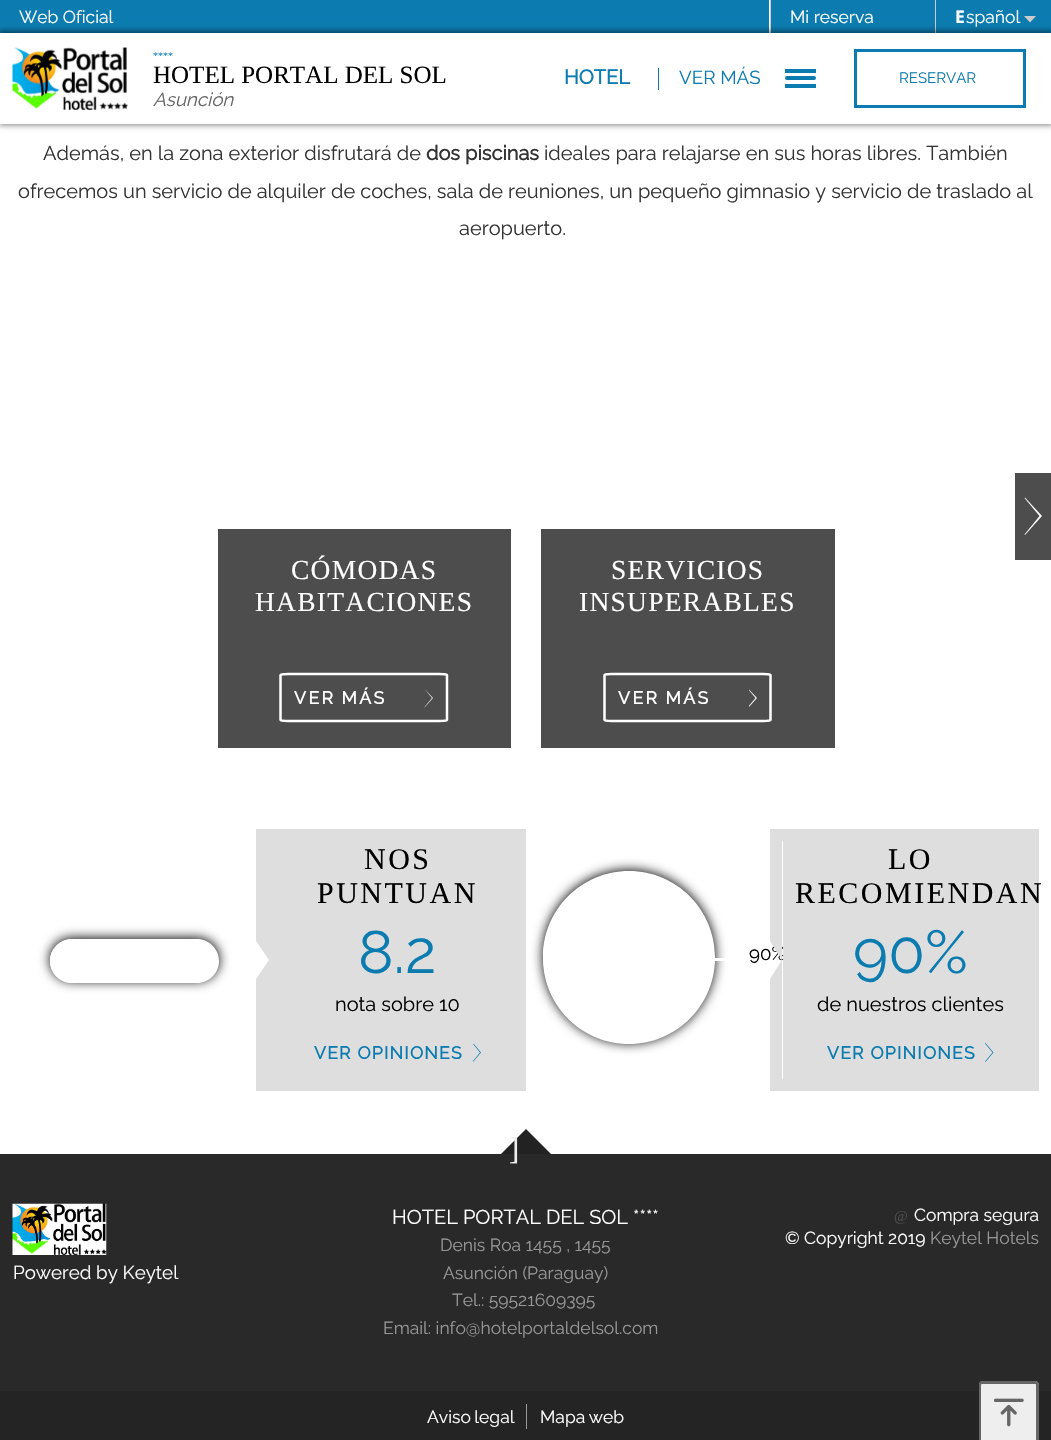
void draw(SkCanvas* c) {
SkPaint p;
p.setAntiAlias(true);
auto F=[&](const char* family, int weight, float size, bool italic = false){SkFontStyle style(weight, SkFontStyle::kNormal_Width,italic ? SkFontStyle::kItalic_Slant : SkFontStyle::kUpright_Slant);SkFont result(fontMgr->matchFamilyStyle(family, style), size);result.setSubpixel(true);return result;};
auto T=[&](const char* s, float x, float y, const SkFont& font){c->drawString(s, x, y, font, p);};
auto L=[&](const char* s, float x, float y, const SkFont& font, const SkPaint& ink, float letter, float word){std::vector<SkGlyphID> glyphs(font.countText(s, strlen(s), SkTextEncoding::kUTF8));std::vector<float> xs(glyphs.size());font.textToGlyphs(s, strlen(s), SkTextEncoding::kUTF8, glyphs);font.getXPos(glyphs, xs, x);float extra = 0;for (size_t i = 0; i < glyphs.size(); i++) {xs[i] += extra;extra += letter + word * (glyphs[i] == font.unicharToGlyph(' '));}c->drawTextBlob(SkTextBlob::MakeFromPosHGlyphs(glyphs, xs, y, font), 0, 0, ink);};
auto R=[&](float x, float y, float w, float h){c->drawRect(SkRect::MakeXYWH(x, y, w, h), p);};
auto Q=[&](float x, float y, float w, float h, float radius){c->drawRoundRect(SkRect::MakeXYWH(x, y, w, h), radius, radius, p);};
auto I=[&](const char* path, float x, float y, float w, float h){auto image = SkImages::DeferredFromEncodedData(SkData::MakeFromFileName(path));c->drawImageRect(image, SkRect::MakeXYWH(x, y, w, h), SkSamplingOptions());};
auto P=[&](const char* data, bool evenOdd = false){SkPath result = *SkParsePath::FromSVGString(data);if (evenOdd) result.setFillType(SkPathFillType::kEvenOdd);return result;};
c->clear(0xffffffff);
p.setColor(0xff0c7cb0);
R(0,0,1051,33);
auto f1 = F("Raleway",100,17.5);
p.setColor(0xffffffff);
T("Web Oficial",19,23,f1);
R(769,0,1,33);
p.setColor(0xffcccccc);
R(770,0,1,33);
p.setColor(0xffffffff);
T("Mi reserva",790,23,f1);
p.setColor(0xffcccccc);
R(935,0,1,33);
auto f2 = F("Noto Sans",700,17.5);
p.setColor(0xffffffff);
T("E",955,23,f2);
T("spañol",966,23,f1);
p.setColor(0xffcccccc);
c->drawPath(P("M1024 16h12l-6 6.5z"),p);
p.setColor(0x80000000);
p.setMaskFilter(SkMaskFilter::MakeBlur(kNormal_SkBlurStyle, 3));
c->drawRect(SkRect::MakeXYWH(-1,31,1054,94),p);
p.setMaskFilter(nullptr);
p.setColor(0xffffffff);
R(0,33,1051,91);
I("1.png",12,47,116,63);
auto f3 = F("Liberation Serif",400,10);
p.setColor(0xff0c7cb0);
T("****",153,59,f3);
auto f4 = F("Liberation Serif",400,25);
p.setColor(0xff000000);
T("HOTEL PORTAL DEL SOL",153,83,f4);
auto f5 = F("Raleway",100,18.75,true);
p.setColor(0xff666666);
T("Asunción",153,106,f5);
auto f6 = F("Raleway",700,20);
p.setColor(0xff0c7cb0);
T("HOTEL",564,84,f6);
R(658,68,1,22);
auto f7 = F("Raleway",100,18.75);
T("VER MÁS",679,84,f7);
Q(785,76,31,4,2);
R(785,69,31,4);
R(785,84,31,4);
p.setStroke(true);
p.setStrokeWidth(3);
c->drawRect(SkRect::MakeXYWH(855.5,50.5,169,56),p);
auto f8 = F("Raleway",100,15);
p.setStroke(false);
T("RESERVAR",899,83,f8);
auto f9 = F("Raleway",100,20);
p.setColor(0xff333333);
T("Además, en la zona exterior disfrutará de",43,160,f9);
T("dos piscinas",426,160,f6);
T("ideales para relajarse en sus horas libres. También",544,160,f9);
T("ofrecemos un servicio de alquiler de coches, sala de reuniones, un pequeño gimnasio y servicio de traslado al",18,198,f9);
T("aeropuerto.",459,235,f9);
p.setColor(0xff4d4d4d);
R(1015,473,36,87);
p.setColor(0xffffffff);
c->drawPath(P("M1042 516l-17 19l-.5-.5l15-18.5l-15-18l.5-.5z"),p);
p.setColor(0xff4d4d4d);
R(218,529,293,219);
auto f10 = F("Liberation Serif",400,27.5);
p.setColor(0xffffffff);
L("CÓMODAS",291,579,f10,p,1.25,0);
L("HABITACIONES",255,611,f10,p,1.25,0);
p.setStroke(true);
p.setStrokeWidth(2.5);
c->drawPath(P("M288 674h151.5c4 0 7.5 .5 7.5 1v45c0 .5-3.5 1-7.5 1h-151.5c-4 0-7.5-.5-7.5-1v-45c0-.5 3.5-1 7.5-1z"),p);
auto f11 = F("Raleway",700,17.5);
p.setStroke(false);
L("VER MÁS",294,704,f11,p,2.5,-1);
c->drawPath(P("M433 698l-8.5 9.5v-.5l7.5-9l-7.5-9z"),p);
p.setColor(0xff4d4d4d);
R(541,529,294,219);
p.setColor(0xffffffff);
L("SERVICIOS",611,579,f10,p,1.25,0);
L("INSUPERABLES",579,611,f10,p,1.25,0);
p.setStroke(true);
c->drawPath(P("M611.5 674h152c4 0 7 .5 7 1v45c0 .5-3 1-7 1h-152c-4 0-7-.5-7-1v-45c0-.5 3-1 7-1z"),p);
p.setStroke(false);
L("VER MÁS",618,704,f11,p,2.5,-1);
c->save();
c->clipRect(SkRect::MakeXYWH(749,689,9,19));
c->drawPath(P("M757 698l-8.5 9.5l-.5-.5l7.5-9l-7.5-9h.5z"),p);
c->restore();
c->save();
c->clipPath(P("M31 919h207v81h-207zm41 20h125c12 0 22 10 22 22c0 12-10 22-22 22h-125c-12 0-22-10-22-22c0-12 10-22 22-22z",true),true);
p.setColor(0xff000000);
p.setMaskFilter(SkMaskFilter::MakeBlur(kNormal_SkBlurStyle, 6));
c->drawRoundRect(SkRect::MakeXYWH(50,938,169,43),21.5,21.5,p);
p.setMaskFilter(nullptr);
c->restore();
p.setColor(0xffffffff);
Q(50,939,139,44,22);
p.setColor(0xffdedede);
R(269,829,257,262);
R(256,829,13,12);
c->drawPath(P("M269 829v131l-13-19v-100z"),p);
auto f12 = F("Liberation Serif",400,30);
p.setColor(0xff000000);
L("NOS",364,869,f12,p,2.5,0);
L("PUNTUAN",317,903,f12,p,2.5,0);
p.setColor(0xffdedede);
c->drawPath(P("M269 960v131l-13-12v-100z"),p);
R(256,1079,13,12);
auto f13 = F("Raleway",100,60);
p.setColor(0xff0c7cb0);
T("8.2",358,973,f13);
p.setColor(0xff000000);
T("nota sobre 10",335,1011,f9);
p.setColor(0xff0c7cb0);
L("VER OPINIONES",314,1059,f11,p,1.25,0);
c->save();
c->clipRect(SkRect::MakeXYWH(473,1044,8,19));
c->drawPath(P("M481 1052.5l-8 9.5l-.5-.5l7.5-9l-7.5-9l.5-.5z"),p);
c->restore();
c->save();
c->clipPath(P("M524 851h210v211h-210zm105 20c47.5 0 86 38.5 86 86v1c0 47.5-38.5 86-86 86c-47.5 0-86-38.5-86-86v-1c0-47.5 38.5-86 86-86z",true),true);
p.setColor(0xff000000);
p.setMaskFilter(SkMaskFilter::MakeBlur(kNormal_SkBlurStyle, 6));
c->drawRoundRect(SkRect::MakeXYWH(543,870,172,173),86,86,p);
p.setMaskFilter(nullptr);
c->restore();
c->save();
c->clipPath(P("M629 871c47.5 0 86 38.5 86 86v1c0 47.5-38.5 86-86 86c-47.5 0-86-38.5-86-86v-1c0-47.5 38.5-86 86-86z"),true);
p.setStroke(true);
p.setStrokeWidth(43.8);
p.setColor(0xffffffff);
c->drawPath(P("M629 894c35 0 63.5 28.5 63.5 63.5c0 35-28.5 63.5-63.5 63.5c-35.5 0-64-28.5-64-63.5c0-21.5 10.5-40.5 27-52"),p);
c->restore();
p.setStroke(false);
R(714,958,15,3);
p.setColor(0xff000000);
T("90%",749,960,f7);
p.setColor(0xffdedede);
R(783,829,256,262);
R(770,829,13,12);
c->drawPath(P("M782 829v131l-12-19v-100z"),p);
p.setColor(0xff000000);
L("LO",888,869,f12,p,2.5,0);
L("RECOMIENDAN",795,903,f12,p,2.5,0);
p.setColor(0xffdedede);
c->drawPath(P("M782 960v131l-12-12v-100z"),p);
R(770,1079,13,12);
p.setColor(0xff0c7cb0);
T("90%",853,973,f13);
p.setColor(0xff000000);
T("de nuestros clientes",817,1011,f9);
p.setColor(0xff0c7cb0);
L("VER OPINIONES",827,1059,f11,p,1.25,0);
c->drawPath(P("M993.5 1052.5l-8 9.5l-.5-.5l7.5-9l-7.5-9l.5-.5z"),p);
p.setColor(0xff222222);
c->drawPath(P("M551 1154h-50l25-25z"),p);
p.setColor(0xff292929);
R(0,1154,1051,237);
auto f14 = F("Liberation Serif",400,31);
p.setColor(0xffeeeeee);
T("]",509,1159,f14);
I("2.png",12,1203,95,52);
p.setColor(0xffffffff);
T("Powered by Keytel",13,1279,f7);
T("HOTEL PORTAL DEL SOL ****",392,1224,f9);
p.setColor(0xff979797);
T("Denis Roa 1455 , 1455",440,1251,f1);
T("Asunción (Paraguay)",443,1279,f1);
T("Tel.: 59521609395",452,1306,f1);
T("Email: info@hotelportaldelsol.com",383,1334,f1);
auto f15 = F("Liberation Serif",400,15);
p.setColor(0xff4d4d4d);
T("@",894,1221,f15);
p.setColor(0xffffffff);
T("Compra segura",914,1221,f1);
T("© Copyright 2019",785,1244,f1);
p.setColor(0xff979797);
T("Keytel Hotels",930,1244,f1);
p.setColor(0xff242424);
R(0,1391,1051,49);
p.setColor(0xffffffff);
L("Aviso legal",427,1423,f1,p,0,-1);
p.setColor(0xff999999);
R(526,1404,1,25);
p.setColor(0xffffffff);
L("Mapa web",540,1423,f1,p,0,-1);
p.setColor(0xffeeeeee);
c->drawPath(P("M983 1381h52c2 0 4 2 4 4v55h-60v-55c0-2 2-4 4-4z"),p);
p.setColor(0xff666666);
c->drawPath(P("M982 1381h53c2 0 4 2 4 4v55h-60v-55c0-2 1-4 3-4zm0 3h53c1 0 1 0 1 1v55h-55v-55c0-1 1-1 1-1z",true),p);
I("3.png",994,1398,30,29);
}
